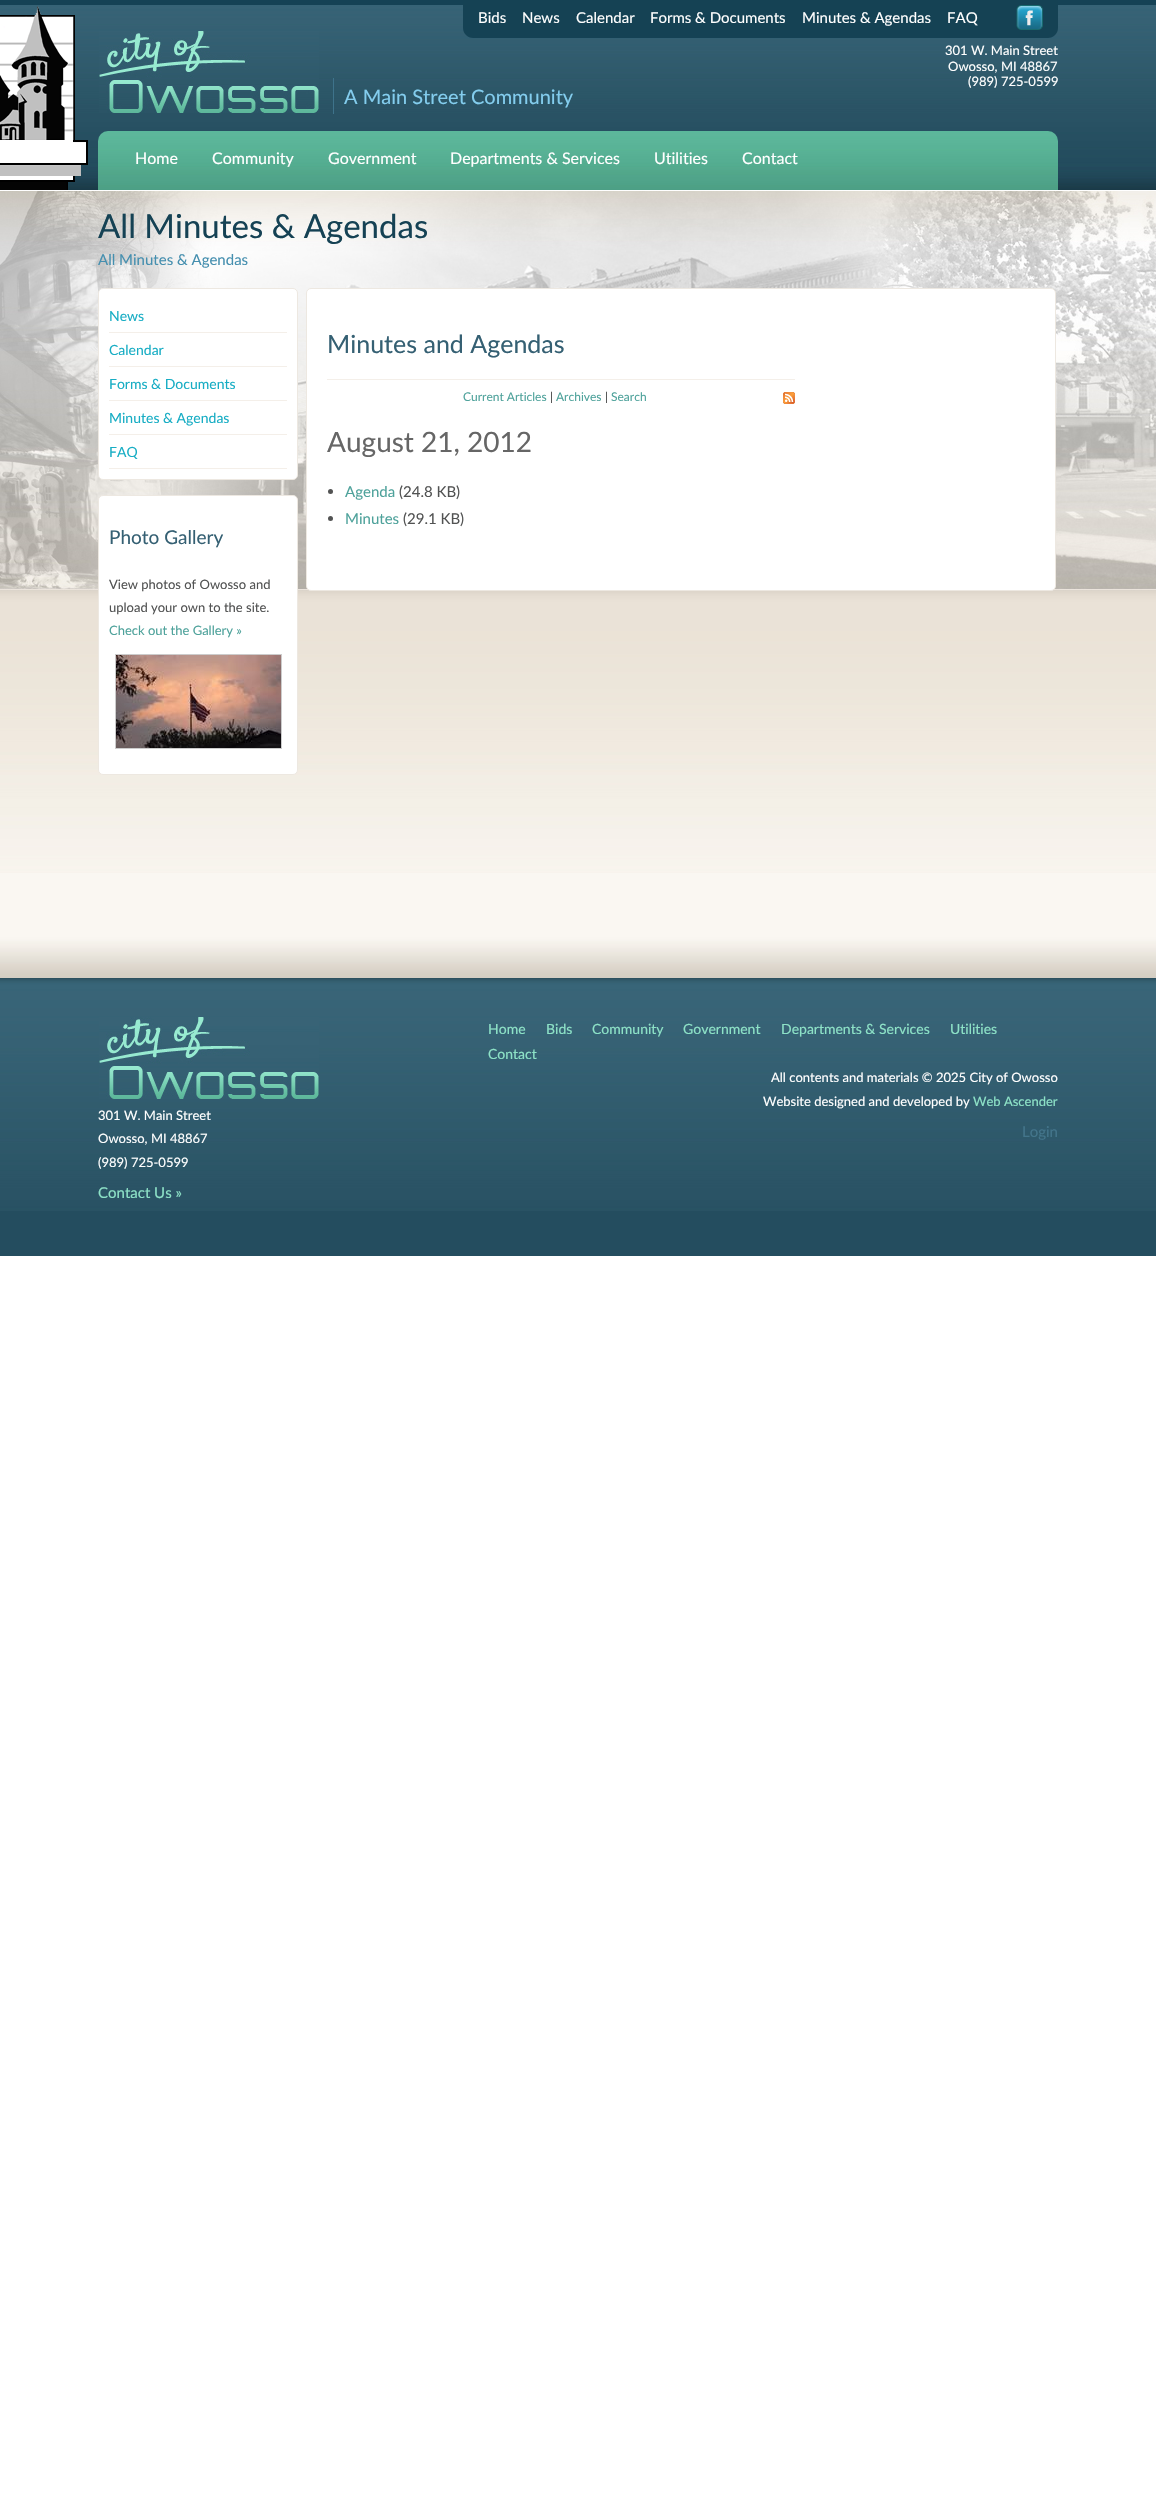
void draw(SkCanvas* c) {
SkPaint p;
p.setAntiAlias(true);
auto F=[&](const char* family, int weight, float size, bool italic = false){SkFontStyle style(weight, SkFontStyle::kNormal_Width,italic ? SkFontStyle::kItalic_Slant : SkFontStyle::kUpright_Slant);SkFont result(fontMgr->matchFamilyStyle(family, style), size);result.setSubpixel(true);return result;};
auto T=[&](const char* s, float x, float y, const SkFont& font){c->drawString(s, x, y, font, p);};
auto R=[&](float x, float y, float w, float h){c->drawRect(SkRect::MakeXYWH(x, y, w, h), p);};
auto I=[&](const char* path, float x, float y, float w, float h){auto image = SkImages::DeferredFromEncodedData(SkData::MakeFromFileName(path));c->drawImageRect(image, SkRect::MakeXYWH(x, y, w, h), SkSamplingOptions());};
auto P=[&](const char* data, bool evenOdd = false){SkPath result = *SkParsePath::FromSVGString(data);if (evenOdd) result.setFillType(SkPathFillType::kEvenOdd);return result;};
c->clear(0xffffffff);
I("1.png",0,0,1156,190);
I("2.png",0,6,88,184);
I("3.png",99,31,220,82);
p.setColor(0xff154254);
c->drawPath(P("M463 0h595v28c0 5.5-4.5 10-10 10h-575c-5.5 0-10-4.5-10-10z"),p);
auto f1 = F("Lato",400,15);
p.setColor(0xffffffff);
T("Bids",478,23,f1);
T("News",522,23,f1);
T("Calendar",576,23,f1);
T("Forms & Documents",650,23,f1);
T("Minutes & Agendas",802,23,f1);
T("FAQ",947,23,f1);
I("4.png",1016,5,27,25);
auto f2 = F("Lato",400,13);
T("301 W. Main Street",945,55,f2);
T("Owosso, MI 48867",948,71,f2);
T("(989) 725-0599",968,86,f2);
p.setColor(0xff3e738b);
R(333,78,1,36);
auto f3 = F("Lato",400,20);
p.setColor(0xff83cdee);
T("A Main Street Community",344,104,f3);
I("5.png",98,131,960,59);
auto f4 = F("Lato",400,16);
p.setColor(0xffffffff);
T("Home",135,164,f4);
T("Community",212,164,f4);
T("Government",328,164,f4);
T("Departments & Services",450,164,f4);
T("Utilities",654,164,f4);
T("Contact",742,164,f4);
p.setColor(0xfffaf7f2);
R(0,873,1156,63);
I("6.png",0,191,1156,682);
auto f5 = F("Lato",400,33);
p.setColor(0xff154254);
T("All Minutes & Agendas",98,238,f5);
p.setColor(0xff458faf);
T("All Minutes & Agendas",98,265,f1);
p.setColor(0xffffffff);
c->drawRoundRect(SkRect::MakeXYWH(98.5,288.5,199,191),4.5,4.5,p);
p.setStroke(true);
p.setStrokeWidth(1);
p.setColor(0xffede8e1);
c->drawRoundRect(SkRect::MakeXYWH(98.5,288.5,199,191),4.5,4.5,p);
p.setStroke(false);
p.setColor(0xfff4efe9);
R(109,332,178,1);
auto f6 = F("Lato",400,14);
p.setColor(0xff17adc4);
T("News",109,321,f6);
p.setColor(0xfff4efe9);
R(109,366,178,1);
p.setColor(0xff17adc4);
T("Calendar",109,355,f6);
p.setColor(0xfff4efe9);
R(109,400,178,1);
p.setColor(0xff17adc4);
T("Forms & Documents",109,389,f6);
p.setColor(0xfff4efe9);
R(109,434,178,1);
p.setColor(0xff17adc4);
T("Minutes & Agendas",109,423,f6);
p.setColor(0xfff4efe9);
R(109,468,178,1);
p.setColor(0xff17adc4);
T("FAQ",109,457,f6);
p.setColor(0xffffffff);
c->drawRoundRect(SkRect::MakeXYWH(98.5,495.5,199,279),4.5,4.5,p);
p.setStroke(true);
p.setColor(0xffede8e1);
c->drawRoundRect(SkRect::MakeXYWH(98.5,495.5,199,279),4.5,4.5,p);
auto f7 = F("Lato",400,19);
p.setStroke(false);
p.setColor(0xff356073);
T("Photo Gallery",109,544,f7);
p.setColor(0xff525353);
T("View photos of Owosso and",109,589,f2);
T("upload your own to the site.",109,612,f2);
p.setColor(0xff4ea29b);
T("Check out the Gallery »",109,635,f2);
p.setStroke(true);
p.setColor(0xffcccccc);
c->drawRect(SkRect::MakeXYWH(115.5,654.5,166,94),p);
I("7.png",116,655,165,93);
p.setStroke(false);
p.setColor(0xffffffff);
c->drawRoundRect(SkRect::MakeXYWH(306.5,288.5,749,302),4.5,4.5,p);
p.setStroke(true);
p.setColor(0xffede8e1);
c->drawRoundRect(SkRect::MakeXYWH(306.5,288.5,749,302),4.5,4.5,p);
p.setStroke(false);
p.setColor(0xfff4efe9);
R(327,379,468,1);
auto f8 = F("Lato",400,25);
p.setColor(0xff356073);
T("Minutes and Agendas",327,353,f8);
auto f9 = F("Lato",400,12);
p.setColor(0xff4ea29b);
T("Current Articles",463,401,f9);
p.setColor(0xff444444);
T("|",550,401,f9);
p.setColor(0xff4ea29b);
T("Archives",556,401,f9);
p.setColor(0xff444444);
T("|",605,401,f9);
p.setColor(0xff4ea29b);
T("Search",611,401,f9);
I("8.png",783,392,12,12);
auto f10 = F("Lato",400,28);
p.setColor(0xff666666);
T("August 21, 2012",327,452,f10);
p.setColor(0xff525353);
c->drawCircle(330.5,491.5,2.5,p);
p.setColor(0xff4ea29b);
T("Agenda",345,497,f1);
p.setColor(0xff525353);
T("(24.8 KB)",399,497,f1);
c->drawCircle(330.5,518.5,2.5,p);
p.setColor(0xff4ea29b);
T("Minutes",345,524,f1);
p.setColor(0xff525353);
T("(29.1 KB)",403,524,f1);
p.setColor(0xff244d5f);
R(0,1211,1156,45);
I("9.png",0,936,1156,275);
p.setColor(0xff8de2c7);
T("Home",488,1034,f6);
T("Bids",546,1034,f6);
T("Community",592,1034,f6);
T("Government",683,1034,f6);
T("Departments & Services",781,1034,f6);
T("Utilities",950,1034,f6);
T("Contact",488,1059,f6);
p.setColor(0xffffffff);
T("All contents and materials © 2025 City of Owosso",771,1082,f2);
T("Website designed and developed by",763,1106,f2);
p.setColor(0xff8de2c7);
T("Web Ascender",973,1106,f2);
p.setColor(0xff43758b);
T("Login",1022,1137,f1);
I("10.png",99,1017,220,82);
p.setColor(0xffffffff);
T("301 W. Main Street",98,1120,f2);
T("Owosso, MI 48867",98,1143,f2);
T("(989) 725-0599",98,1167,f2);
p.setColor(0xff8de2c7);
T("Contact Us »",98,1198,f1);
}
